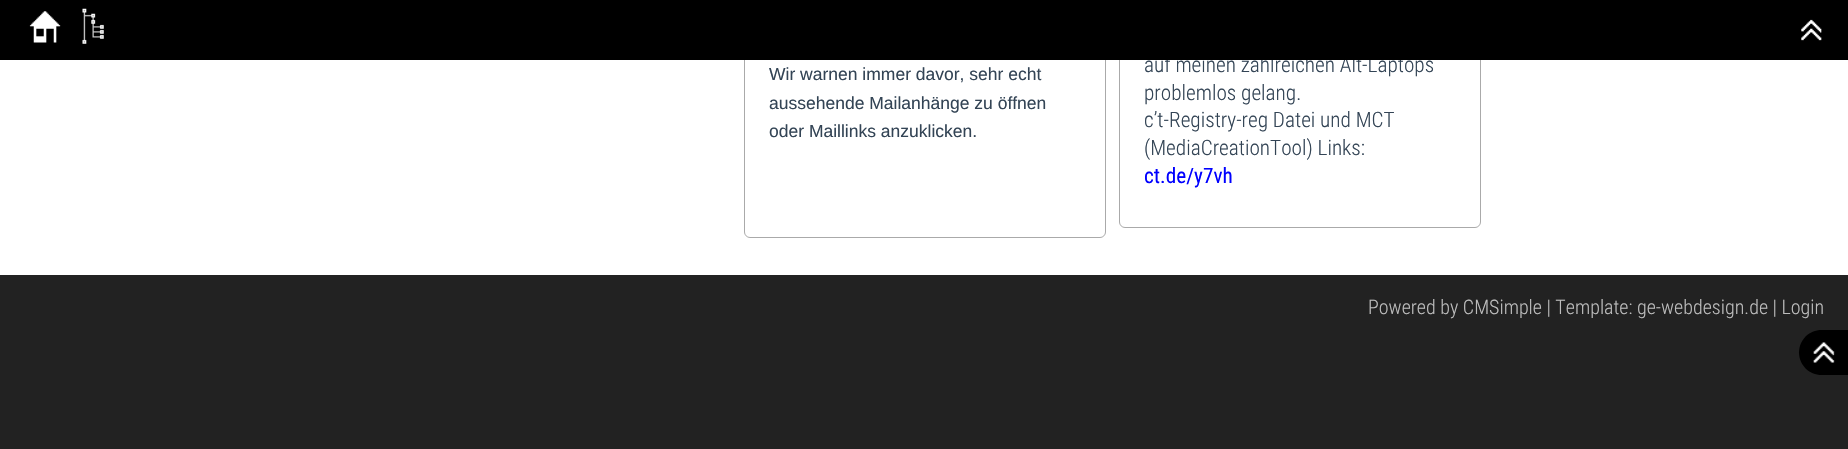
void draw(SkCanvas* c) {
SkPaint p;
p.setAntiAlias(true);
auto F=[&](const char* family, int weight, float size, bool italic = false){SkFontStyle style(weight, SkFontStyle::kNormal_Width,italic ? SkFontStyle::kItalic_Slant : SkFontStyle::kUpright_Slant);SkFont result(fontMgr->matchFamilyStyle(family, style), size);result.setSubpixel(true);return result;};
auto T=[&](const char* s, float x, float y, const SkFont& font){c->drawString(s, x, y, font, p);};
auto R=[&](float x, float y, float w, float h){c->drawRect(SkRect::MakeXYWH(x, y, w, h), p);};
auto I=[&](const char* path, float x, float y, float w, float h){auto image = SkImages::DeferredFromEncodedData(SkData::MakeFromFileName(path));c->drawImageRect(image, SkRect::MakeXYWH(x, y, w, h), SkSamplingOptions());};
auto P=[&](const char* data, bool evenOdd = false){SkPath result = *SkParsePath::FromSVGString(data);if (evenOdd) result.setFillType(SkPathFillType::kEvenOdd);return result;};
c->clear(0xff222222);
p.setColor(0xffffffff);
R(0,60,1848,215);
p.setStroke(true);
p.setStrokeWidth(1);
p.setColor(0xffaaaaaa);
c->drawRoundRect(SkRect::MakeXYWH(744.5,-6.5,361,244),5.5,5.5,p);
c->drawRoundRect(SkRect::MakeXYWH(1119.5,-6.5,361,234),5.5,5.5,p);
auto f1 = F("Roboto Condensed",300,21.25);
p.setStroke(false);
p.setColor(0xff334455);
T("auf meinen zahlreichen Alt-Laptops",1144,72,f1);
p.setColor(0xff000000);
R(0,0,1848,60);
I("1.png",29,11,32,32);
I("2.png",82,8,22,36);
I("3.png",1801,19,21,22);
auto f2 = F("Liberation Sans",400,17.5);
p.setColor(0xff334455);
T("Wir warnen immer davor, sehr echt",769,80,f2);
T("aussehende Mailanhänge zu öffnen",769,109,f2);
T("oder Maillinks anzuklicken.",769,137,f2);
T("problemlos gelang.",1144,100,f1);
T("c’t-Registry-reg Datei und MCT",1144,127,f1);
T("(MediaCreationTool) Links:",1144,155,f1);
auto f3 = F("Roboto Condensed",400,21.25);
p.setColor(0xff0000ff);
T("ct.de/y7vh",1144,183,f3);
auto f4 = F("Roboto Condensed",300,20);
p.setColor(0xffbdbdbd);
T("Powered by CMSimple | Template: ge-webdesign.de | Login",1368,314,f4);
p.setColor(0xff000000);
c->drawPath(P("M1821.5 330h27.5v45h-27.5c-12.5 0-22.5-10-22.5-22.5c0-12.5 10-22.5 22.5-22.5z"),p);
I("4.png",1813,342,22,21);
}
